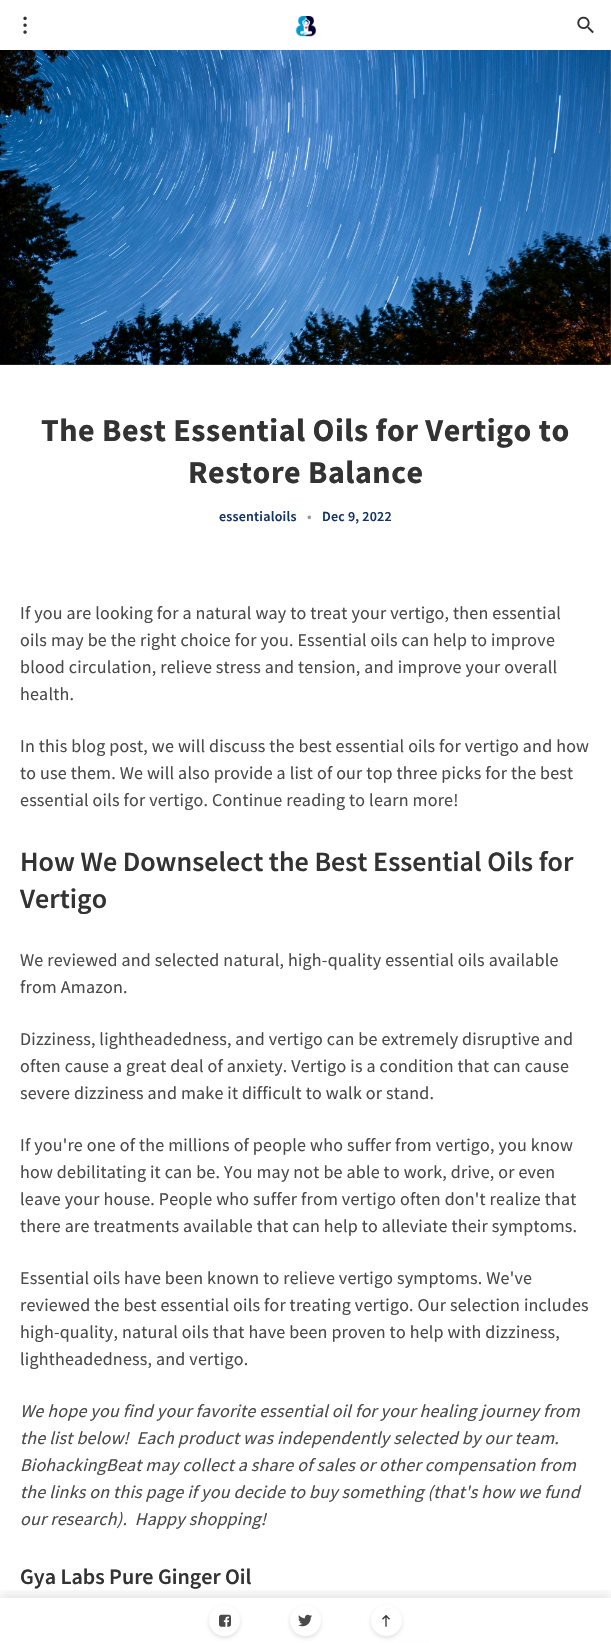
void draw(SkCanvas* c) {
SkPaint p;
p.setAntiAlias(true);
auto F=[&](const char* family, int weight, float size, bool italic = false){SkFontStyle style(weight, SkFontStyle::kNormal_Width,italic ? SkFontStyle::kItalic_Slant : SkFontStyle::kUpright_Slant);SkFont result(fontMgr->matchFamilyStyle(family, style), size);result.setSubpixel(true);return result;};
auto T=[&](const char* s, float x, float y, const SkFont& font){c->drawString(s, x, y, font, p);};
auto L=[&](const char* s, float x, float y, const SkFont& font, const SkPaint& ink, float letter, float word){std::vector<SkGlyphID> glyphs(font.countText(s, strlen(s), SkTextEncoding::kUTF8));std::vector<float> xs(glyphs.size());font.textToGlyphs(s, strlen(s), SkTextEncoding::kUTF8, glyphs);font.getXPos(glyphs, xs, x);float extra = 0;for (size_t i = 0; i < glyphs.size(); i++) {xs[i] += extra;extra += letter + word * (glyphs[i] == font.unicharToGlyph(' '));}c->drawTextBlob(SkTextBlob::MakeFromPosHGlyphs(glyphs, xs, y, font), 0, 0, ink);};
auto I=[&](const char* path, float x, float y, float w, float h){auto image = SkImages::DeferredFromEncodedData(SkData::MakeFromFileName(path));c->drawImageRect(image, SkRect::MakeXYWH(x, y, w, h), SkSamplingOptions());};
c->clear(0xffffffff);
I("1.png",23,16,4,18);
I("2.png",295,16,21,21);
I("3.png",577,16,17,18);
I("4.png",0,50,611,315);
auto f1 = F("Source Sans Pro",700,32);
p.setColor(0xff333333);
L("The Best Essential Oils for Vertigo to",41,441,f1,p,.5,0);
L("Restore Balance",188,483,f1,p,.5,0);
auto f2 = F("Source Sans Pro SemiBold",600,14);
p.setColor(0xff133467);
L("essentialoils",219,521,f2,p,.2,0);
p.setColor(0xff9b9b9b);
L("•",307,521,f2,p,.2,0);
p.setColor(0xff133467);
L("Dec 9, 2022",322,521,f2,p,.2,0);
auto f3 = F("Source Sans Pro",400,18);
p.setColor(0xff4a4a4a);
L("If you are looking for a natural way to treat your vertigo, then essential",20,619,f3,p,.2,0);
L("oils may be the right choice for you. Essential oils can help to improve",20,646,f3,p,.2,0);
L("blood circulation, relieve stress and tension, and improve your overall",20,673,f3,p,.2,0);
L("health.",20,700,f3,p,.2,0);
L("In this blog post, we will discuss the best essential oils for vertigo and how",20,752,f3,p,.2,0);
L("to use them. We will also provide a list of our top three picks for the best",20,779,f3,p,.2,0);
L("essential oils for vertigo. Continue reading to learn more!",20,806,f3,p,.2,0);
auto f4 = F("Source Sans Pro SemiBold",600,28);
p.setColor(0xff333333);
T("How We Downselect the Best Essential Oils for",20,871,f4);
T("Vertigo",20,908,f4);
p.setColor(0xff4a4a4a);
L("We reviewed and selected natural, high-quality essential oils available",20,966,f3,p,.2,0);
L("from Amazon.",20,993,f3,p,.2,0);
L("Dizziness, lightheadedness, and vertigo can be extremely disruptive and",20,1045,f3,p,.2,0);
L("often cause a great deal of anxiety. Vertigo is a condition that can cause",20,1072,f3,p,.2,0);
L("severe dizziness and make it difficult to walk or stand.",20,1099,f3,p,.2,0);
L("If you're one of the millions of people who suffer from vertigo, you know",20,1151,f3,p,.2,0);
L("how debilitating it can be. You may not be able to work, drive, or even",20,1178,f3,p,.2,0);
L("leave your house. People who suffer from vertigo often don't realize that",20,1205,f3,p,.2,0);
L("there are treatments available that can help to alleviate their symptoms.",20,1232,f3,p,.2,0);
L("Essential oils have been known to relieve vertigo symptoms. We've",20,1284,f3,p,.2,0);
L("reviewed the best essential oils for treating vertigo. Our selection includes",20,1311,f3,p,.2,0);
L("high-quality, natural oils that have been proven to help with dizziness,",20,1338,f3,p,.2,0);
L("lightheadedness, and vertigo.",20,1365,f3,p,.2,0);
auto f5 = F("Source Sans Pro",400,18,true);
L("We hope you find your favorite essential oil for your healing journey from",20,1417,f5,p,.2,0);
L("the list below!  Each product was independently selected by our team.",20,1444,f5,p,.2,0);
L("BiohackingBeat may collect a share of sales or other compensation from",20,1471,f5,p,.2,0);
L("the links on this page if you decide to buy something (that's how we fund",20,1498,f5,p,.2,0);
L("our research).  Happy shopping!",20,1525,f5,p,.2,0);
auto f6 = F("Source Sans Pro SemiBold",600,22);
p.setColor(0xff333333);
T("Gya Labs Pure Ginger Oil",20,1584,f6);
I("8.png",305,1641,128,2);
c->save();
c->clipRect(SkRect::MakeXYWH(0,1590,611,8));
p.setColor(0x1a000000);
p.setMaskFilter(SkMaskFilter::MakeBlur(kNormal_SkBlurStyle, 5));
c->drawRect(SkRect::MakeXYWH(0,1594,611,45),p);
p.setMaskFilter(nullptr);
c->restore();
p.setColor(0x336b6b6b);
p.setMaskFilter(SkMaskFilter::MakeBlur(kNormal_SkBlurStyle, 2));
c->drawRoundRect(SkRect::MakeXYWH(209,1607,31,31),15.5,15.5,p);
p.setMaskFilter(nullptr);
p.setColor(0xffffffff);
c->drawCircle(224.5,1620.5,15.5,p);
I("5.png",219,1614,12,13);
p.setColor(0x336b6b6b);
p.setMaskFilter(SkMaskFilter::MakeBlur(kNormal_SkBlurStyle, 2));
c->drawRoundRect(SkRect::MakeXYWH(290,1607,31,31),15.5,15.5,p);
p.setMaskFilter(nullptr);
p.setColor(0xffffffff);
c->drawCircle(305.5,1620.5,15.5,p);
I("6.png",298,1614,14,13);
p.setColor(0x336b6b6b);
p.setMaskFilter(SkMaskFilter::MakeBlur(kNormal_SkBlurStyle, 2));
c->drawRoundRect(SkRect::MakeXYWH(371,1607,31,31),15.5,15.5,p);
p.setMaskFilter(nullptr);
p.setColor(0xffffffff);
c->drawCircle(386.5,1620.5,15.5,p);
I("7.png",382,1614,8,13);
}
